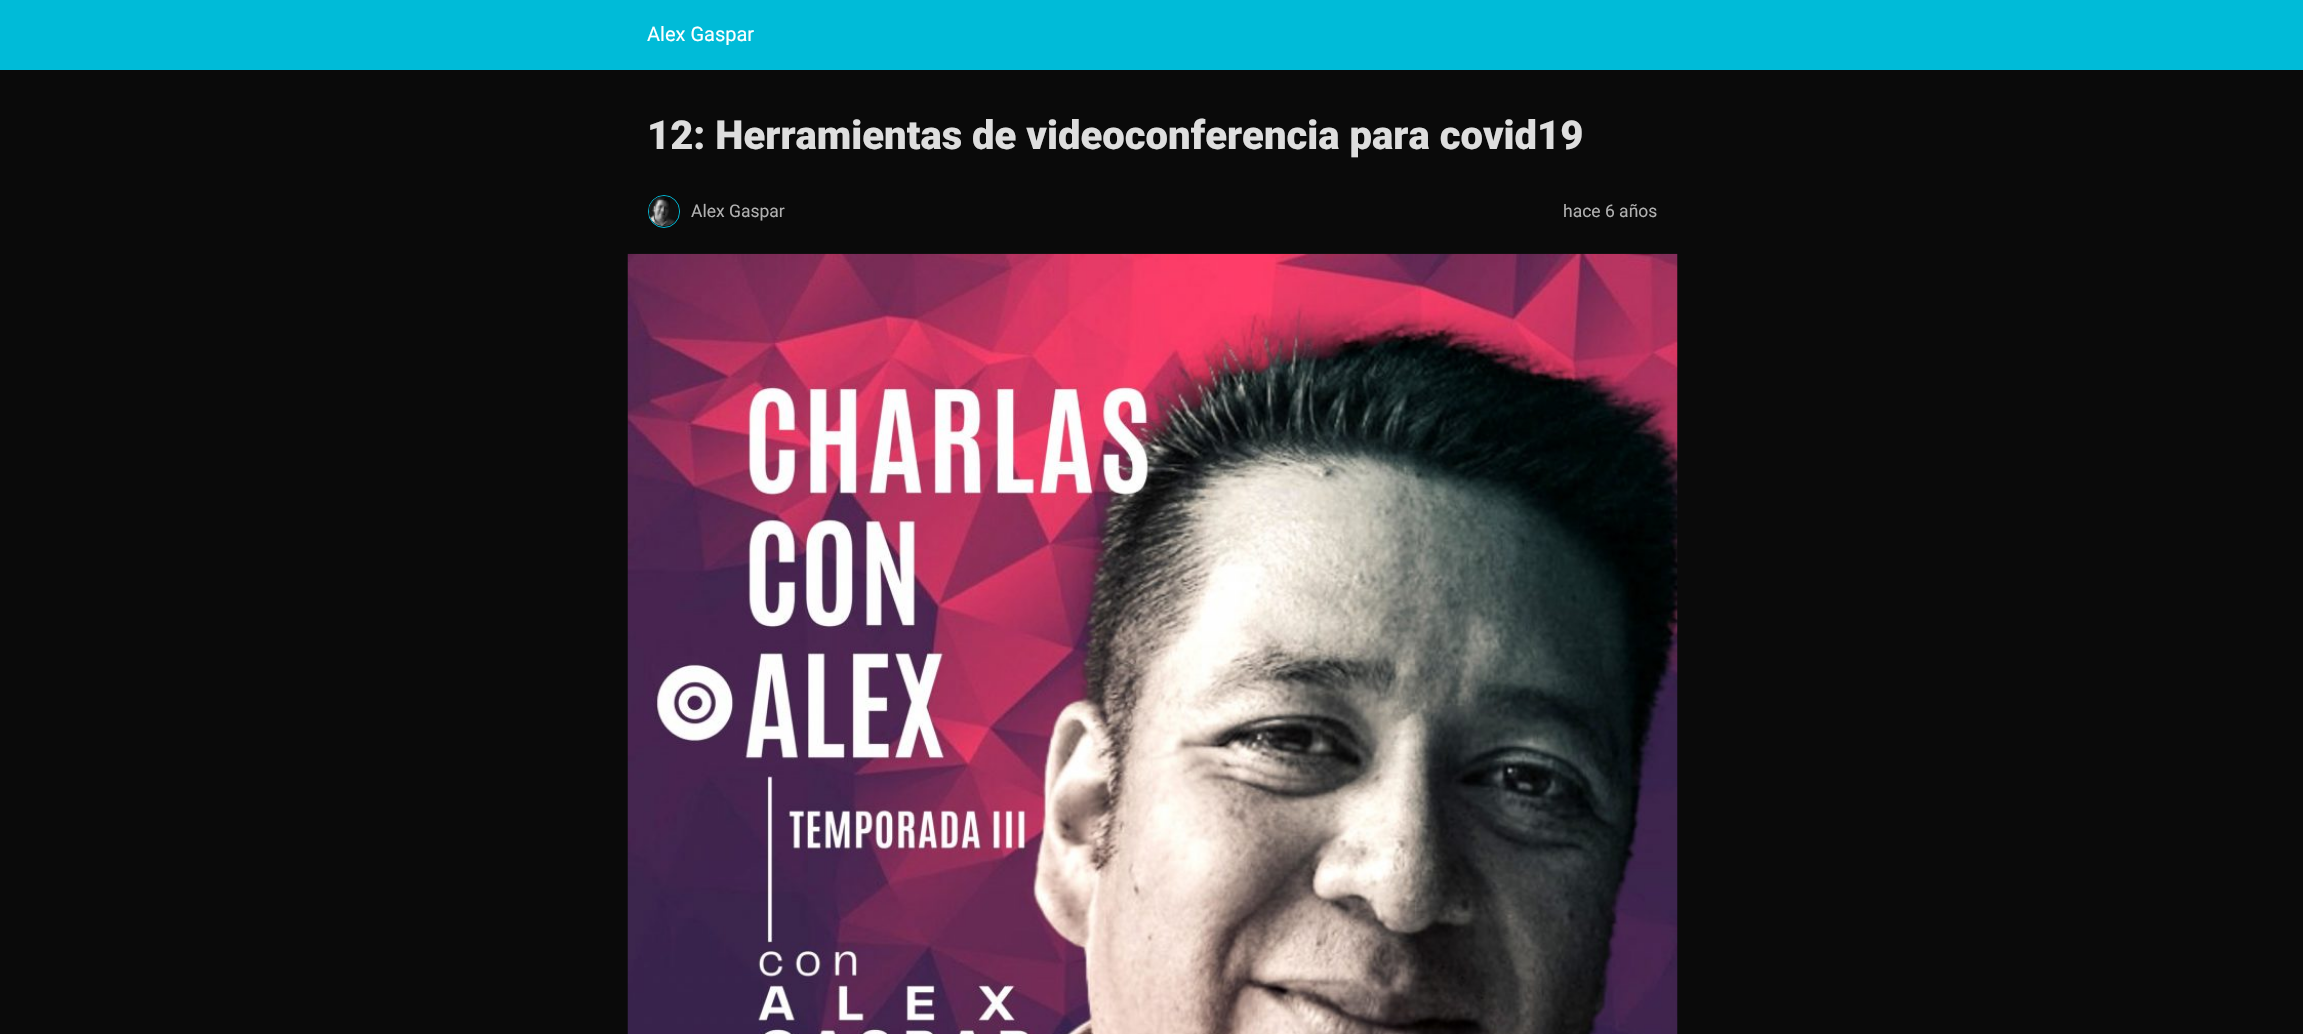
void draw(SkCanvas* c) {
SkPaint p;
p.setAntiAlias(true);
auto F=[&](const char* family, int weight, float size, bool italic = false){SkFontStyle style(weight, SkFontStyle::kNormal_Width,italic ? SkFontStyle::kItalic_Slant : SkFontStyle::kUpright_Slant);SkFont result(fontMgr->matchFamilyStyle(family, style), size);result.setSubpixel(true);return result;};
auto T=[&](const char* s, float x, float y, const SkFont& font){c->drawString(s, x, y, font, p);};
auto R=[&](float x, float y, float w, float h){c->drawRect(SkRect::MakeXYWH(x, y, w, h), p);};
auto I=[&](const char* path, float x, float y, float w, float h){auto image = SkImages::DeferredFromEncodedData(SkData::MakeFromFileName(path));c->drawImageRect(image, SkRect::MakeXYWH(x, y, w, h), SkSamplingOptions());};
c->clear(0xff0a0a0a);
p.setColor(0xff00bbd8);
R(0,0,2303,70);
auto f1 = F("Roboto",400,20);
p.setColor(0xffffffff);
T("Alex Gaspar",647,41,f1);
auto f2 = F("Roboto",900,40);
p.setColor(0xffdedede);
T("12: Herramientas de videoconferencia para covid19",647,149,f2);
p.setStroke(true);
p.setStrokeWidth(1);
p.setColor(0xff00bbd8);
c->drawRoundRect(SkRect::MakeXYWH(648.5,195.5,31,32),15.5,15.5,p);
I("1.png",648,196,31,30);
auto f3 = F("Roboto",400,17.5);
p.setStroke(false);
p.setColor(0xffb1b1b1);
T("Alex Gaspar",691,217,f3);
T("hace 6 años",1563,217,f3);
I("2.png",627,253,1051,781);
}
